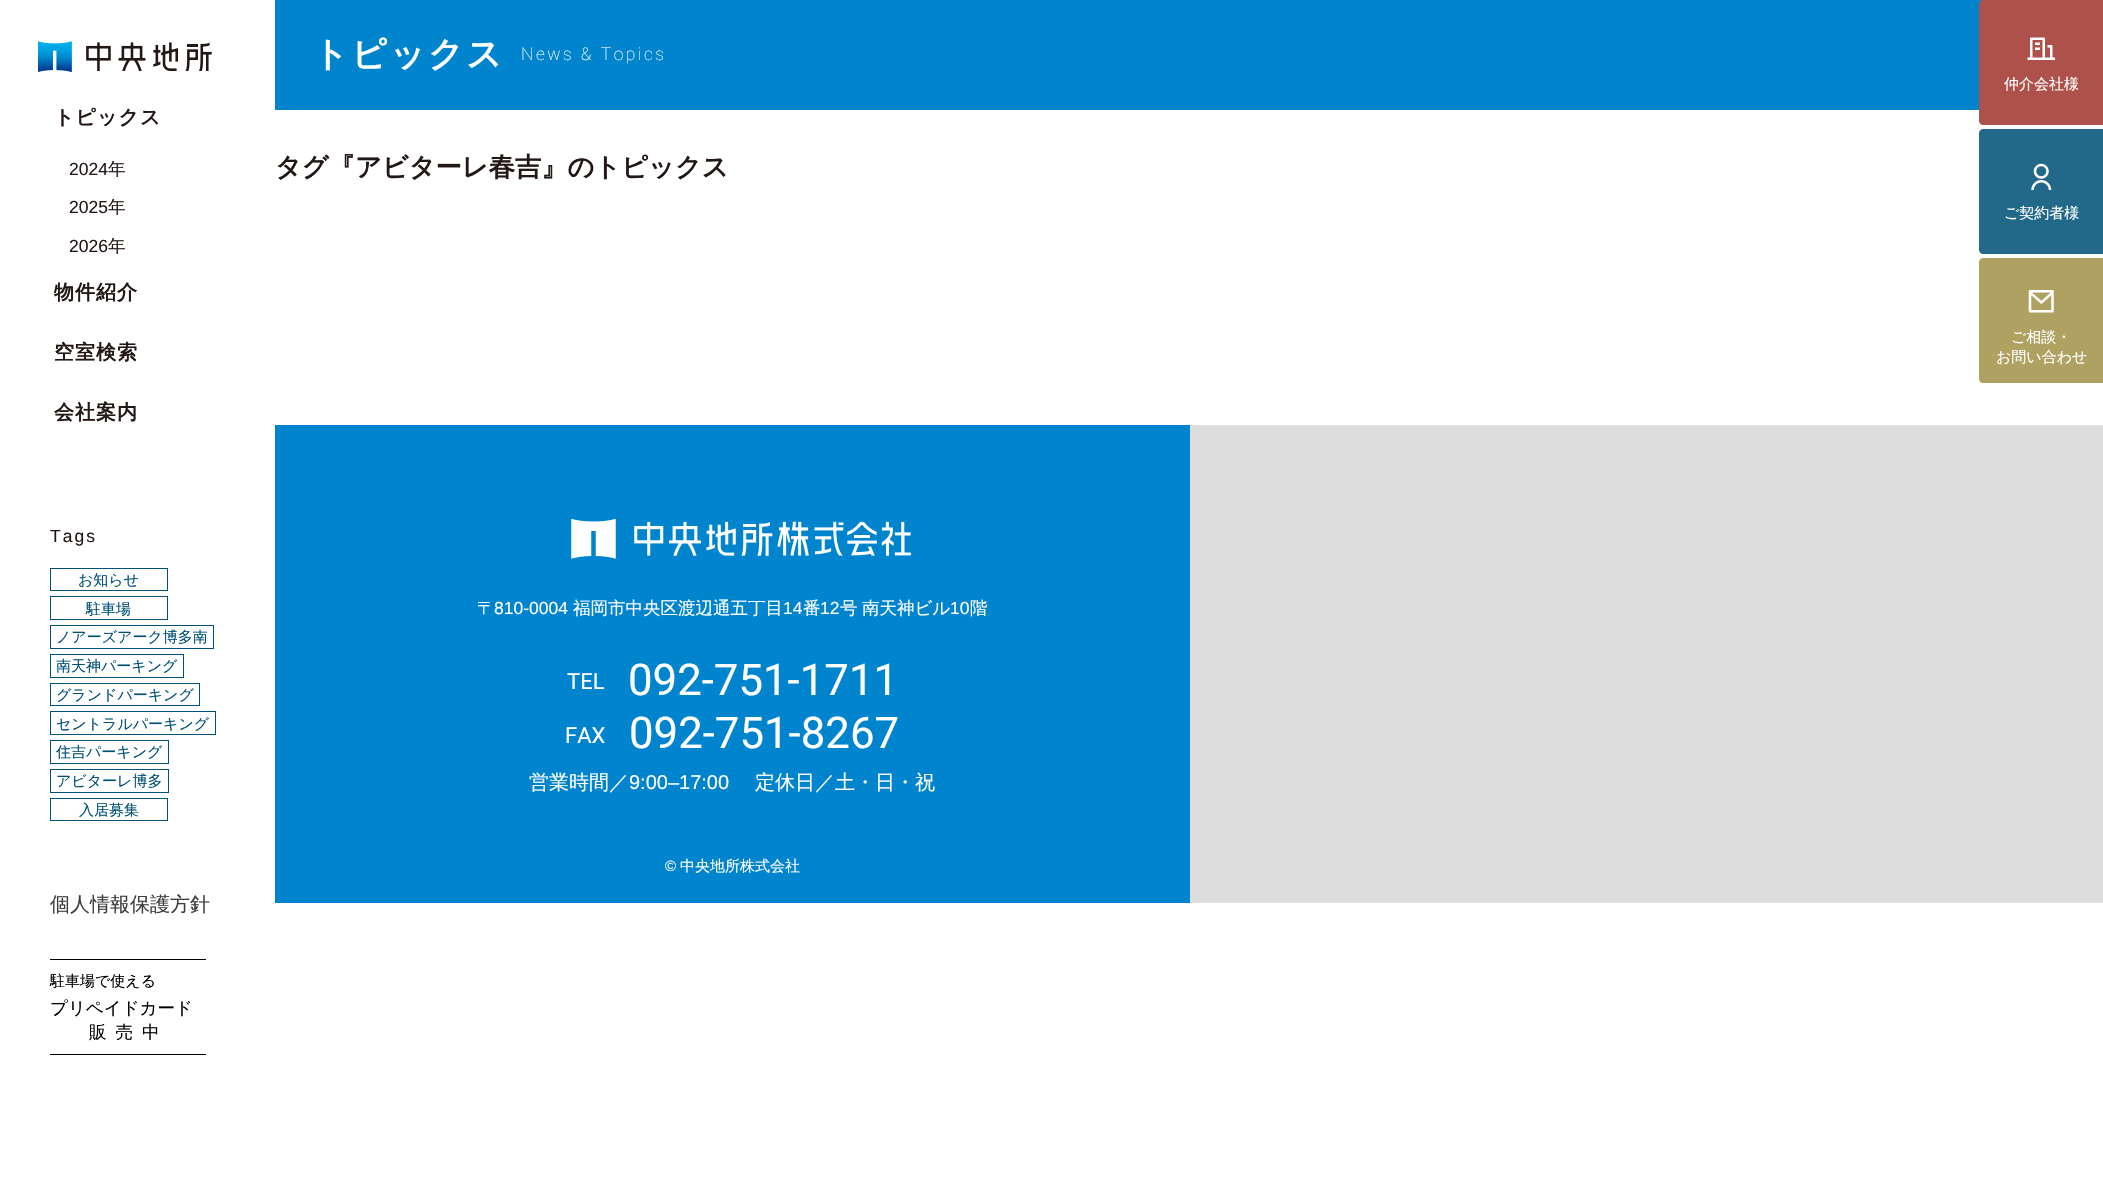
void draw(SkCanvas* c) {
SkPaint p;
p.setAntiAlias(true);
auto F=[&](const char* family, int weight, float size, bool italic = false){SkFontStyle style(weight, SkFontStyle::kNormal_Width,italic ? SkFontStyle::kItalic_Slant : SkFontStyle::kUpright_Slant);SkFont result(fontMgr->matchFamilyStyle(family, style), size);result.setSubpixel(true);return result;};
auto T=[&](const char* s, float x, float y, const SkFont& font){c->drawString(s, x, y, font, p);};
auto L=[&](const char* s, float x, float y, const SkFont& font, const SkPaint& ink, float letter, float word){std::vector<SkGlyphID> glyphs(font.countText(s, strlen(s), SkTextEncoding::kUTF8));std::vector<float> xs(glyphs.size());font.textToGlyphs(s, strlen(s), SkTextEncoding::kUTF8, glyphs);font.getXPos(glyphs, xs, x);float extra = 0;for (size_t i = 0; i < glyphs.size(); i++) {xs[i] += extra;extra += letter + word * (glyphs[i] == font.unicharToGlyph(' '));}c->drawTextBlob(SkTextBlob::MakeFromPosHGlyphs(glyphs, xs, y, font), 0, 0, ink);};
auto R=[&](float x, float y, float w, float h){c->drawRect(SkRect::MakeXYWH(x, y, w, h), p);};
auto I=[&](const char* path, float x, float y, float w, float h){auto image = SkImages::DeferredFromEncodedData(SkData::MakeFromFileName(path));c->drawImageRect(image, SkRect::MakeXYWH(x, y, w, h), SkSamplingOptions());};
auto P=[&](const char* data, bool evenOdd = false){SkPath result = *SkParsePath::FromSVGString(data);if (evenOdd) result.setFillType(SkPathFillType::kEvenOdd);return result;};
c->clear(0xffffffff);
auto f1 = F("WenQuanYi Zen Hei",700,20);
p.setColor(0xff231815);
L("トピックス",54,124,f1,p,1,0);
auto f2 = F("Liberation Sans",400,17.5);
T("2024",69,175,f2);
auto f3 = F("WenQuanYi Zen Hei",500,17.5);
T("年",108,175,f3);
T("2025",69,213,f2);
T("年",108,213,f3);
T("2026",69,252,f2);
T("年",108,252,f3);
L("物件紹介",54,299,f1,p,1,0);
L("空室検索",54,359,f1,p,1,0);
L("会社案内",54,419,f1,p,1,0);
L("Tags",50,542,f2,p,2,0);
p.setStroke(true);
p.setStrokeWidth(1);
p.setColor(0xff005177);
c->drawRect(SkRect::MakeXYWH(50.5,568.5,117,22),p);
auto f4 = F("WenQuanYi Zen Hei",500,15);
p.setStroke(false);
T("お知らせ",78,585,f4);
p.setStroke(true);
c->drawRect(SkRect::MakeXYWH(50.5,596.5,117,23),p);
p.setStroke(false);
T("駐車場",86,614,f4);
p.setStroke(true);
c->drawRect(SkRect::MakeXYWH(50.5,625.5,163,23),p);
p.setStroke(false);
T("ノアーズアーク博多南",56,642,f4);
p.setStroke(true);
c->drawRect(SkRect::MakeXYWH(50.5,654.5,133,23),p);
p.setStroke(false);
T("南天神パーキング",56,671,f4);
p.setStroke(true);
c->drawRect(SkRect::MakeXYWH(50.5,683.5,149,22),p);
p.setStroke(false);
T("グランドパーキング",56,700,f4);
p.setStroke(true);
c->drawRect(SkRect::MakeXYWH(50.5,711.5,165,23),p);
p.setStroke(false);
T("セントラルパーキング",56,729,f4);
p.setStroke(true);
c->drawRect(SkRect::MakeXYWH(50.5,740.5,118,23),p);
p.setStroke(false);
T("住吉パーキング",56,757,f4);
p.setStroke(true);
c->drawRect(SkRect::MakeXYWH(50.5,769.5,118,23),p);
p.setStroke(false);
T("アビターレ博多",56,786,f4);
p.setStroke(true);
c->drawRect(SkRect::MakeXYWH(50.5,798.5,117,22),p);
p.setStroke(false);
T("入居募集",79,815,f4);
auto f5 = F("WenQuanYi Zen Hei",500,20);
p.setColor(0xff3c3c3c);
T("個人情報保護方針",50,911,f5);
p.setColor(0xff000000);
R(50,959,156,1);
R(50,1054,156,1);
T("駐車場で使える",50,986,f4);
T("プリペイドカード",50,1014,f3);
L("販売中",89,1038,f3,p,9,0);
I("1.png",38,41,174,32);
p.setColor(0xff0084cd);
R(275,0,1708,110);
auto f6 = F("WenQuanYi Zen Hei",700,35);
p.setColor(0xffffffff);
L("トピックス",313,66,f6,p,2.5,0);
auto f7 = F("Roboto",100,17.5);
L("News & Topics",521,60,f7,p,2.5,0);
auto f8 = F("WenQuanYi Zen Hei",700,26.25);
p.setColor(0xff231815);
T("タグ『アビターレ春吉』のトピックス",275,176,f8);
p.setColor(0xff0084cd);
R(275,425,915,478);
I("2.png",571,519,340,40);
p.setColor(0xffffffff);
T("〒",477,614,f3);
T("810-0004",494,614,f2);
T("福岡市中央区渡辺通五丁目",573,614,f3);
T("14",783,614,f2);
T("番",803,614,f3);
T("12",820,614,f2);
T("号",840,614,f3);
T("南天神ビル",862,614,f3);
T("10",950,614,f2);
T("階",970,614,f3);
auto f9 = F("Roboto",400,22);
T("TEL",567,689,f9);
auto f10 = F("Roboto",400,43.75);
T("092-751-1711",628,695,f10);
T("FAX",565,743,f9);
T("092-751-8267",629,748,f10);
T("営業時間／",529,789,f5);
auto f11 = F("Liberation Sans",400,20);
T("9:00‒17:00",629,789,f11);
T("定休日／土・日・祝",755,789,f5);
auto f12 = F("Liberation Sans",400,15);
T("©",665,871,f12);
T("中央地所株式会社",680,871,f4);
p.setColor(0xffdddddd);
R(1190,425,913,478);
p.setColor(0xffae514a);
c->drawPath(P("M1983 0h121v125h-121c-2 0-4-2-4-4v-117c0-2 2-4 4-4z"),p);
I("3.png",2027,37,28,23);
p.setColor(0xffffffff);
T("仲介会社様",2004,89,f4);
p.setColor(0xff216889);
c->drawPath(P("M1983 129h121v125h-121c-2 0-4-2-4-4v-117c0-2 2-4 4-4z"),p);
I("4.png",2031,163,21,27);
p.setColor(0xffffffff);
T("ご契約者様",2004,218,f4);
p.setColor(0xffafa161);
c->drawPath(P("M1983 258h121v125h-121c-2 0-4-2-4-4v-117c0-2 2-4 4-4z"),p);
I("5.png",2028,290,26,23);
p.setColor(0xffffffff);
T("ご相談・",2011,342,f4);
T("お問い合わせ",1996,362,f4);
}
